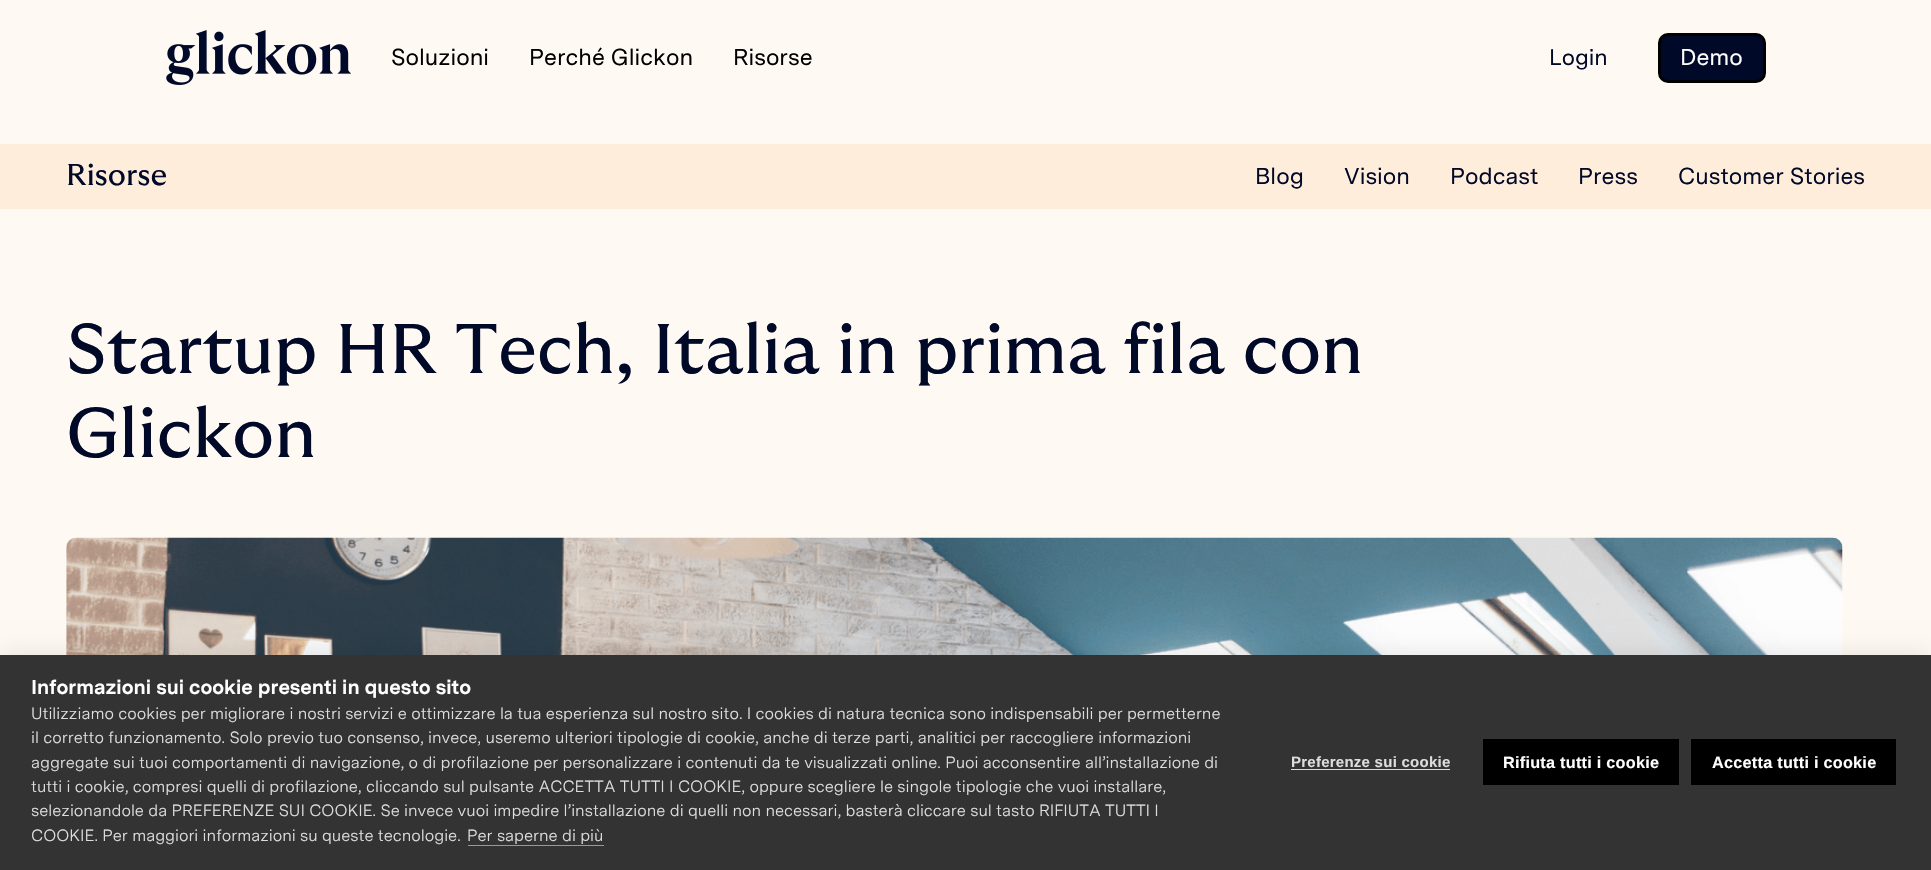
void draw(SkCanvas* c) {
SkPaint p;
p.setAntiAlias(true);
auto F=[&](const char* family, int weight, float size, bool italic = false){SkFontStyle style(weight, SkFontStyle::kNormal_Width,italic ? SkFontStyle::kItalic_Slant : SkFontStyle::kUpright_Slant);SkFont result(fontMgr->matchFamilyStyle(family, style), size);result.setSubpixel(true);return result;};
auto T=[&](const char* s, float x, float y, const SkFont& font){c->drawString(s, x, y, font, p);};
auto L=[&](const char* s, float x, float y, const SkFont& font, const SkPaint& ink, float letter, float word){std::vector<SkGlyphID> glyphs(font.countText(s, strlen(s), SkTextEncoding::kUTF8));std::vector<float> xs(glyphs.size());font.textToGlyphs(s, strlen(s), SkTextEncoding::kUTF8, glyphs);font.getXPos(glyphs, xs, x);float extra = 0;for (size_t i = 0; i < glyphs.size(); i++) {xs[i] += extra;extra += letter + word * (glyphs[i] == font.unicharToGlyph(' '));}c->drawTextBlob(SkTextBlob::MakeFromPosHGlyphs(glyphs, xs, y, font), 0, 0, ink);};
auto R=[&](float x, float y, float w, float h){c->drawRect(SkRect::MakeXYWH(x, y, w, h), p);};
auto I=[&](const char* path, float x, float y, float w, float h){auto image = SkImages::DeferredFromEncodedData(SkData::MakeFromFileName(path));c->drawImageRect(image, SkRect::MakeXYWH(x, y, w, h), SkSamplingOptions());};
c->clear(0xfffff9f3);
I("1.png",166,30,185,55);
auto f1 = F("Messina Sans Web",400,23);
p.setColor(0xff000000);
T("Soluzioni",391,65,f1);
T("Perché Glickon",529,65,f1);
T("Risorse",733,65,f1);
auto f2 = F("Messina Sans Web",400,22.5);
p.setColor(0xff010928);
T("Login",1549,65,f2);
c->drawRoundRect(SkRect::MakeXYWH(1659.5,34.5,105,47),8.5,8.5,p);
p.setStroke(true);
p.setStrokeWidth(3);
p.setColor(0xff000000);
c->drawRoundRect(SkRect::MakeXYWH(1659.5,34.5,105,47),8.5,8.5,p);
p.setStroke(false);
p.setColor(0xffffffff);
T("Demo",1680,65,f1);
p.setColor(0xffffeddb);
R(0,144,1931,65);
auto f3 = F("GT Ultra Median",400,30);
p.setColor(0xff010928);
T("Risorse",66,185,f3);
T("Blog",1255,184,f1);
T("Vision",1344,184,f1);
T("Podcast",1450,184,f1);
T("Press",1578,184,f1);
T("Customer Stories",1678,184,f1);
auto f4 = F("GT Ultra Median",400,70);
T("Startup HR Tech, Italia in prima fila con",66,373,f4);
T("Glickon",66,457,f4);
I("2.png",66,537,1777,118);
p.setColor(0x1a000000);
p.setMaskFilter(SkMaskFilter::MakeBlur(kNormal_SkBlurStyle, 12.5));
c->drawRect(SkRect::MakeXYWH(0,655,1931,215),p);
p.setMaskFilter(nullptr);
p.setColor(0xff333333);
R(0,655,1931,215);
auto f5 = F("Messina Sans Web",700,20);
p.setColor(0xffffffff);
T("Informazioni sui cookie presenti in questo sito",31,694,f5);
auto f6 = F("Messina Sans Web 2",400,16.25);
p.setColor(0xffdddddd);
T("Utilizziamo cookies per migliorare i nostri servizi e ottimizzare la tua esperienza sul nostro sito. I cookies di natura tecnica sono indispensabili per permetterne",31,719,f6);
T("il corretto funzionamento. Solo previo tuo consenso, invece, useremo ulteriori tipologie di cookie, anche di terze parti, analitici per raccogliere informazioni",31,743,f6);
T("aggregate sui tuoi comportamenti di navigazione, o di profilazione per personalizzare i contenuti da te visualizzati online. Puoi acconsentire all’installazione di",31,768,f6);
T("tutti i cookie, compresi quelli di profilazione, cliccando sul pulsante ACCETTA TUTTI I COOKIE, oppure scegliere le singole tipologie che vuoi installare,",31,792,f6);
T("selezionandole da PREFERENZE SUI COOKIE. Se invece vuoi impedire l’installazione di quelli non necessari, basterà cliccare sul tasto RIFIUTA TUTTI I",31,816,f6);
T("COOKIE. Per maggiori informazioni su queste tecnologie.",31,841,f6);
T("Per saperne di più",467,841,f6);
p.setColor(0xff999999);
R(468,845,136,1);
auto f7 = F("Liberation Sans",700,15);
p.setColor(0xffdddddd);
L("Preferenze sui cookie",1291,767,f7,p,.25,0);
R(1291,769,159,1);
p.setColor(0xff000000);
R(1483,739,196,46);
auto f8 = F("Liberation Sans",700,16.25);
p.setColor(0xffffffff);
L("Rifiuta tutti i cookie",1503,768,f8,p,.25,0);
p.setColor(0xff000000);
R(1691,739,205,46);
p.setColor(0xffffffff);
L("Accetta tutti i cookie",1712,768,f8,p,.25,0);
}
